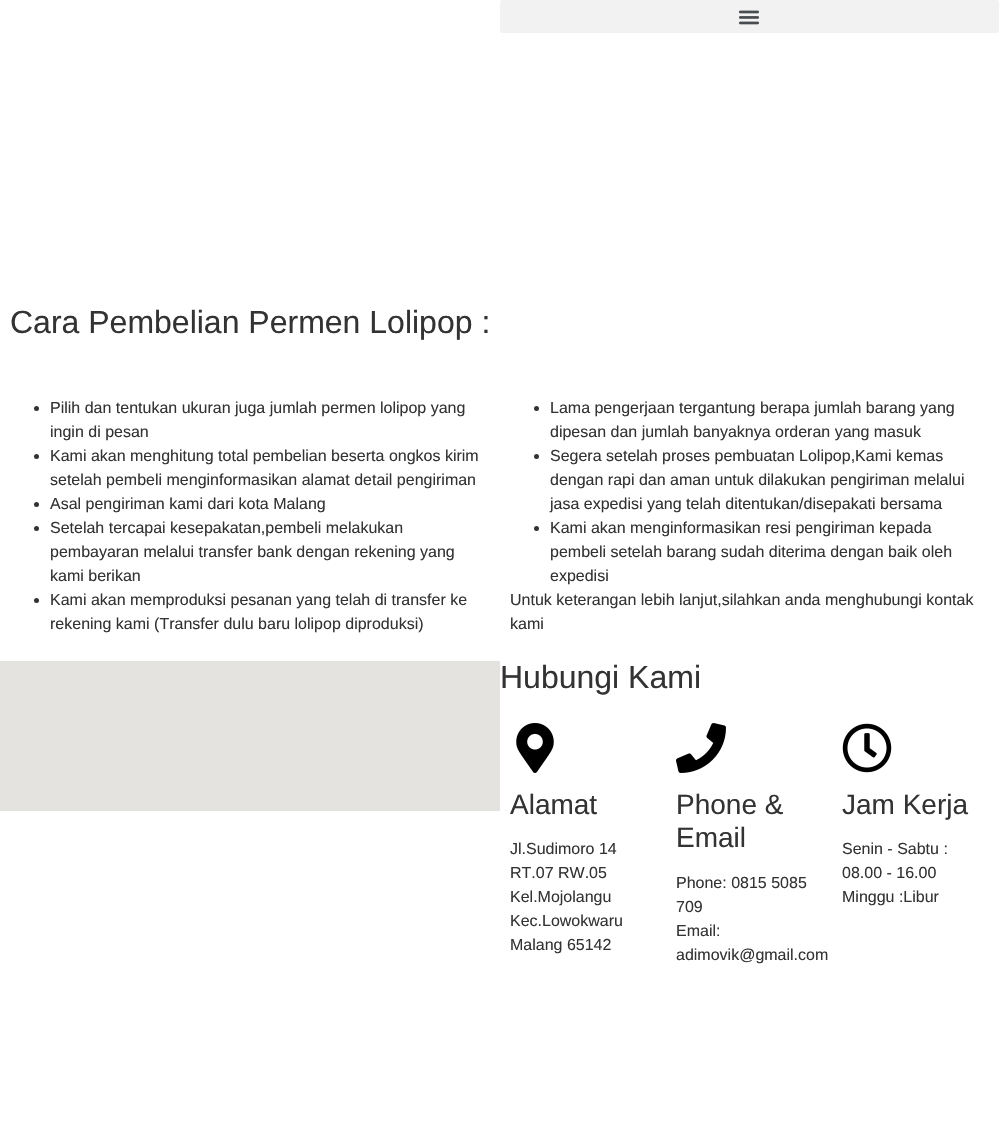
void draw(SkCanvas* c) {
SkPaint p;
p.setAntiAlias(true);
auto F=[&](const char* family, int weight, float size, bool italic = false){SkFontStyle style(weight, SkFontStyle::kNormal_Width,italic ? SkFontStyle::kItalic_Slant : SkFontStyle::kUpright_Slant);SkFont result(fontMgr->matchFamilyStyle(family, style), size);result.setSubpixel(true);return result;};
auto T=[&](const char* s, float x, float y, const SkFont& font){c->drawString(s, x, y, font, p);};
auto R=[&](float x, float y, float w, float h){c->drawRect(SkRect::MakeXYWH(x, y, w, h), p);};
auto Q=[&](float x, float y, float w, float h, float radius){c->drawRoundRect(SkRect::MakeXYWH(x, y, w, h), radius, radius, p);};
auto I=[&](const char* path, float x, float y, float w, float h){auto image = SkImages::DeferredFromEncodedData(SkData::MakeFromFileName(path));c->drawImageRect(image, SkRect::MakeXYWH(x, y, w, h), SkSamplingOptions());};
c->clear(0xffffffff);
p.setColor(0xfff2f2f2);
Q(500,0,499,33,3);
I("1.png",738,10,21,15);
auto f1 = F("Liberation Sans",400,32);
p.setColor(0xff333333);
T("Cara Pembelian Permen Lolipop :",10,333,f1);
c->drawCircle(36.5,408.5,2.5,p);
auto f2 = F("Liberation Sans",400,16);
T("Pilih dan tentukan ukuran juga jumlah permen lolipop yang",50,413,f2);
T("ingin di pesan",50,437,f2);
c->drawCircle(36.5,456.5,2.5,p);
T("Kami akan menghitung total pembelian beserta ongkos kirim",50,461,f2);
T("setelah pembeli menginformasikan alamat detail pengiriman",50,485,f2);
c->drawCircle(36.5,504.5,2.5,p);
T("Asal pengiriman kami dari kota Malang",50,509,f2);
c->drawCircle(36.5,528.5,2.5,p);
T("Setelah tercapai kesepakatan,pembeli melakukan",50,533,f2);
T("pembayaran melalui transfer bank dengan rekening yang",50,557,f2);
T("kami berikan",50,581,f2);
c->drawCircle(36.5,600.5,2.5,p);
T("Kami akan memproduksi pesanan yang telah di transfer ke",50,605,f2);
T("rekening kami (Transfer dulu baru lolipop diproduksi)",50,629,f2);
c->drawCircle(536.5,408.5,2.5,p);
T("Lama pengerjaan tergantung berapa jumlah barang yang",550,413,f2);
T("dipesan dan jumlah banyaknya orderan yang masuk",550,437,f2);
c->drawCircle(536.5,456.5,2.5,p);
T("Segera setelah proses pembuatan Lolipop,Kami kemas",550,461,f2);
T("dengan rapi dan aman untuk dilakukan pengiriman melalui",550,485,f2);
T("jasa expedisi yang telah ditentukan/disepakati bersama",550,509,f2);
c->drawCircle(536.5,528.5,2.5,p);
T("Kami akan menginformasikan resi pengiriman kepada",550,533,f2);
T("pembeli setelah barang sudah diterima dengan baik oleh",550,557,f2);
T("expedisi",550,581,f2);
T("Untuk keterangan lebih lanjut,silahkan anda menghubungi kontak",510,605,f2);
T("kami",510,629,f2);
p.setColor(0xffe5e3df);
R(0,661,500,150);
p.setColor(0xff333333);
T("Hubungi Kami",500,688,f1);
I("2.png",516,723,38,50);
auto f3 = F("Liberation Sans",400,28);
T("Alamat",510,814,f3);
T("Jl.Sudimoro 14",510,854,f2);
T("RT.07 RW.05",510,878,f2);
T("Kel.Mojolangu",510,902,f2);
T("Kec.Lowokwaru",510,926,f2);
T("Malang 65142",510,950,f2);
I("3.png",676,723,50,50);
T("Phone &",676,814,f3);
T("Email",676,847,f3);
T("Phone: 0815 5085",676,888,f2);
T("709",676,912,f2);
T("Email:",676,936,f2);
T("adimovik@gmail.com",676,960,f2);
I("4.png",842,723,50,50);
T("Jam Kerja",842,814,f3);
T("Senin - Sabtu :",842,854,f2);
T("08.00 - 16.00",842,878,f2);
T("Minggu :Libur",842,902,f2);
}
